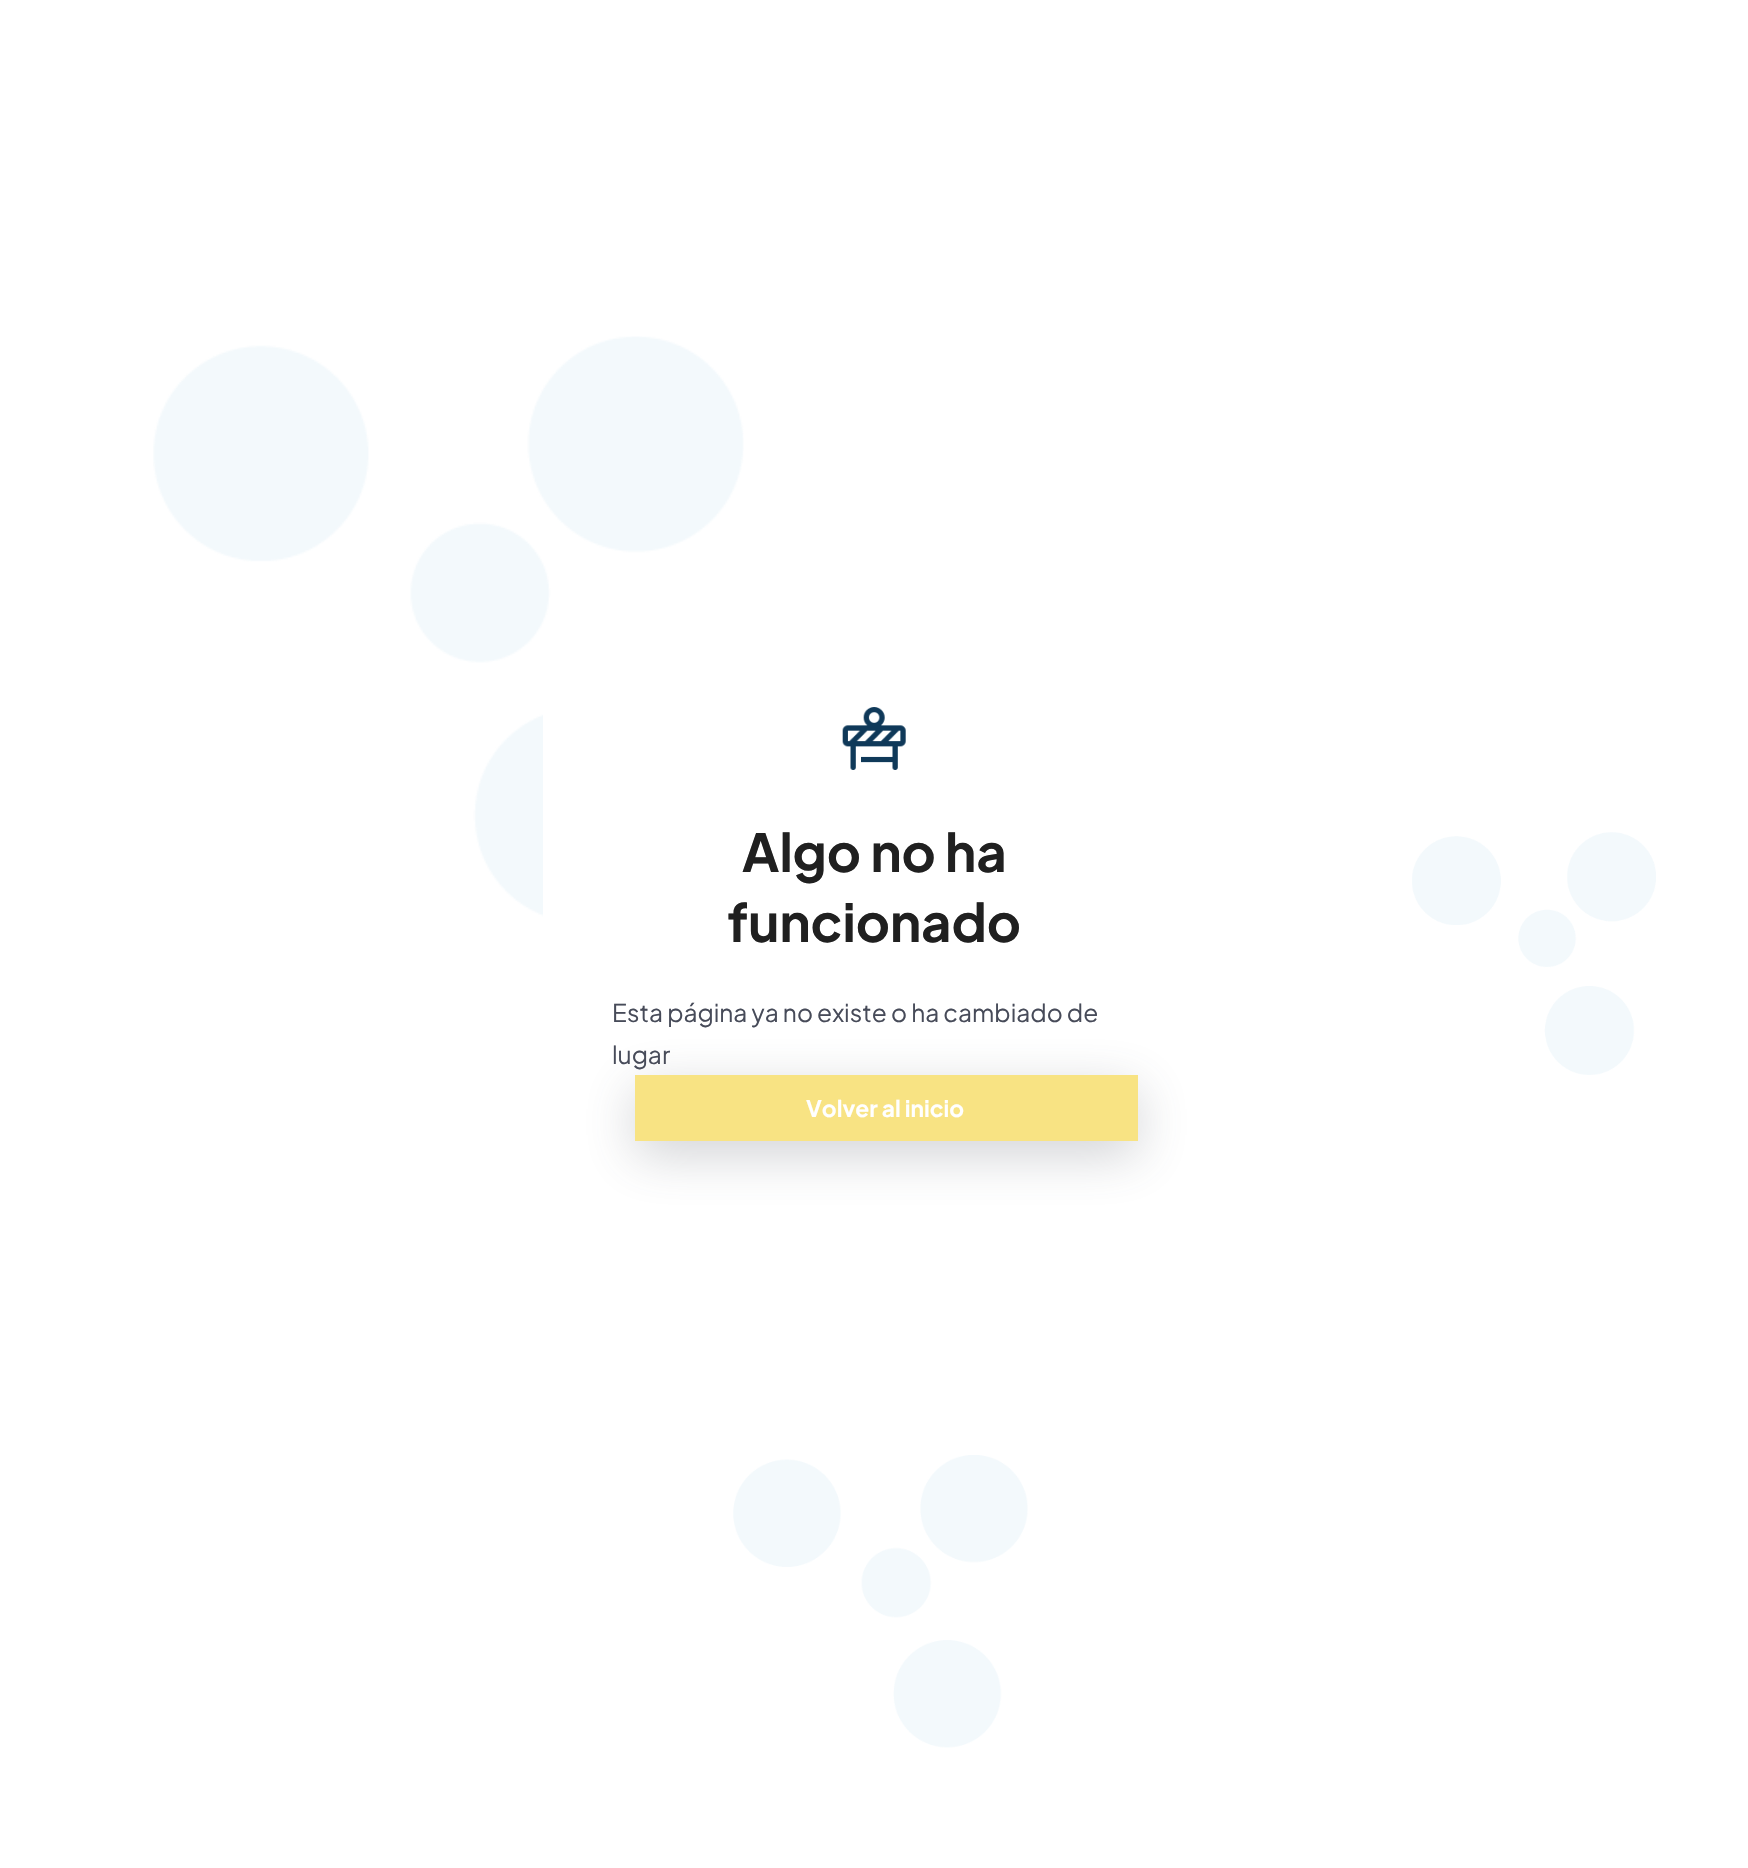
void draw(SkCanvas* c) {
SkPaint p;
p.setAntiAlias(true);
auto F=[&](const char* family, int weight, float size, bool italic = false){SkFontStyle style(weight, SkFontStyle::kNormal_Width,italic ? SkFontStyle::kItalic_Slant : SkFontStyle::kUpright_Slant);SkFont result(fontMgr->matchFamilyStyle(family, style), size);result.setSubpixel(true);return result;};
auto T=[&](const char* s, float x, float y, const SkFont& font){c->drawString(s, x, y, font, p);};
auto R=[&](float x, float y, float w, float h){c->drawRect(SkRect::MakeXYWH(x, y, w, h), p);};
auto I=[&](const char* path, float x, float y, float w, float h){auto image = SkImages::DeferredFromEncodedData(SkData::MakeFromFileName(path));c->drawImageRect(image, SkRect::MakeXYWH(x, y, w, h), SkSamplingOptions());};
c->clear(0xffffffff);
I("1.png",153,336,591,581);
p.setColor(0xffffffff);
R(543,707,148,210);
I("2.png",842,707,64,63);
auto f1 = F("Plus Jakarta Sans",700,52.5);
p.setColor(0xff202020);
T("Algo no ha",742,872,f1);
T("funcionado",727,942,f1);
auto f2 = F("Plus Jakarta Sans",400,24.5);
p.setColor(0xff474b59);
T("Esta página ya no existe o ha cambiado de",612,1022,f2);
T("lugar",612,1064,f2);
p.setColor(0x40474b59);
p.setMaskFilter(SkMaskFilter::MakeBlur(kNormal_SkBlurStyle, 26));
c->drawRect(SkRect::MakeXYWH(635,1089,503,66),p);
p.setMaskFilter(nullptr);
p.setColor(0xfff8e383);
R(635,1075,503,66);
auto f3 = F("Plus Jakarta Sans",700,22.75);
p.setColor(0xffffffff);
T("Volver al inicio",806,1117,f3);
I("3.png",1412,832,244,243);
I("4.png",733,1455,295,293);
}
